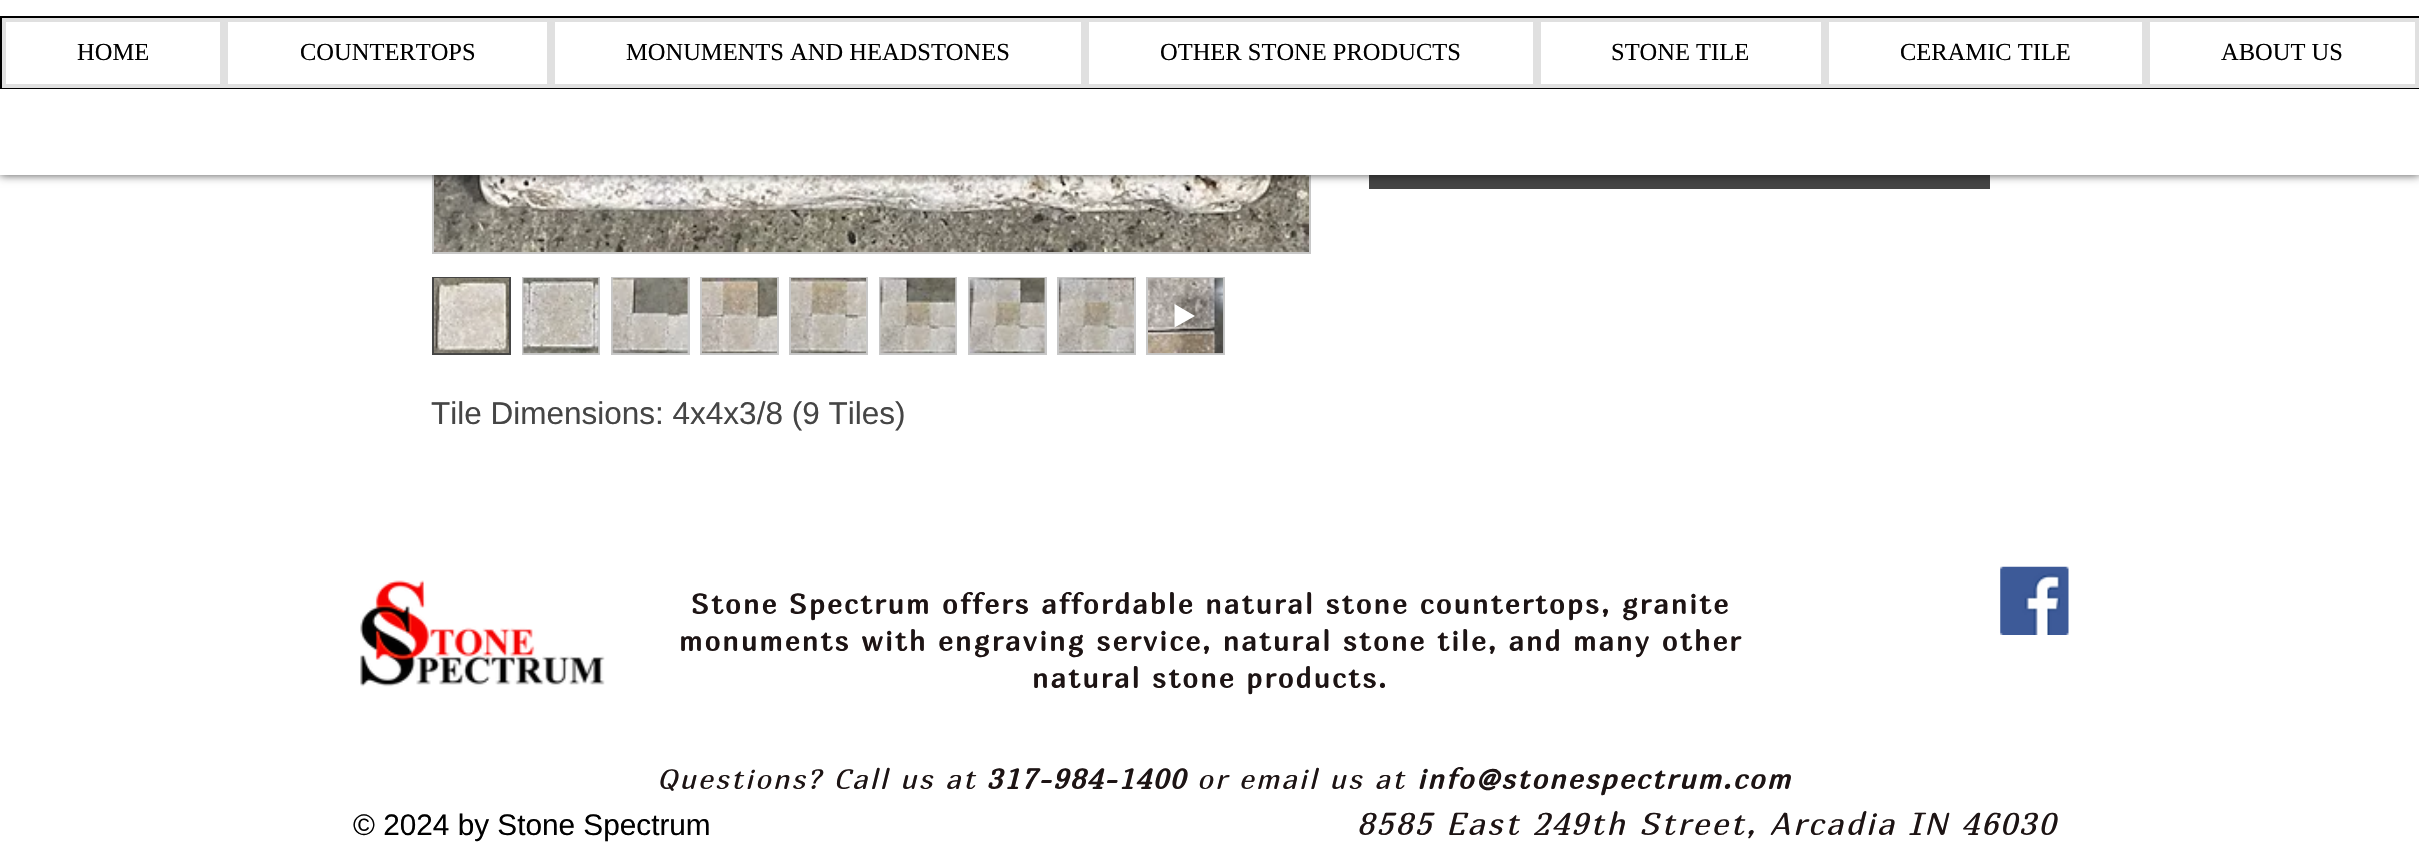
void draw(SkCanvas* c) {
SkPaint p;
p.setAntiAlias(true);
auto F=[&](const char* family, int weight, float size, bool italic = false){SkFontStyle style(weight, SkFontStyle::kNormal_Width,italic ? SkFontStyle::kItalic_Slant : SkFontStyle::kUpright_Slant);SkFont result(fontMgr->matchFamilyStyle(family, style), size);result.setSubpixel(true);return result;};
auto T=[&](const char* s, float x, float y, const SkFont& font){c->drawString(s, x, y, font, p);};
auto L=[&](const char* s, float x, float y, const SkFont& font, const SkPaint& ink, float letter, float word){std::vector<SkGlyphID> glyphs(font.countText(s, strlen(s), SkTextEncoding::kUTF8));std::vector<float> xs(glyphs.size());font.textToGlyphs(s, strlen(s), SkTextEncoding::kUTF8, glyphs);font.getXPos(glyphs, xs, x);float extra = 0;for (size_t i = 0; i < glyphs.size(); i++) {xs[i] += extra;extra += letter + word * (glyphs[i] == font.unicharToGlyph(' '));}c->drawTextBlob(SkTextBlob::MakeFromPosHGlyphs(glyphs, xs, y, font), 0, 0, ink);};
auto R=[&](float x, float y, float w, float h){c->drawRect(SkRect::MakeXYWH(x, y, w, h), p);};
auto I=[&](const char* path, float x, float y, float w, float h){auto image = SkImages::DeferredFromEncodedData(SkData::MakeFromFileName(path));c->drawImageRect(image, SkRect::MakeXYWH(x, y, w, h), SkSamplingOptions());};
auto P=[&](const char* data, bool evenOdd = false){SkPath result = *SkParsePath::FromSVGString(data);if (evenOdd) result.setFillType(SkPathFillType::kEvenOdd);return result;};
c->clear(0xffffffff);
p.setColor(0xff454545);
R(1369,175,621,14);
p.setStroke(true);
p.setStrokeWidth(2);
p.setColor(0xffc8c8c8);
c->drawRect(SkRect::MakeXYWH(433,-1,877,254),p);
I("1.png",434,175,875,77);
p.setStroke(false);
p.setColor(0xb3000000);
p.setMaskFilter(SkMaskFilter::MakeBlur(kNormal_SkBlurStyle, 4.5));
c->drawRect(SkRect::MakeXYWH(0,0,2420,175),p);
p.setMaskFilter(nullptr);
p.setColor(0xffffffff);
R(0,0,2419,175);
p.setStroke(true);
p.setColor(0xff000000);
c->drawRect(SkRect::MakeXYWH(1,17,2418,71),p);
p.setStrokeWidth(4);
p.setColor(0xffe0e0e0);
c->drawRect(SkRect::MakeXYWH(4,20,218,66),p);
auto f1 = F("Liberation Serif",400,24.5);
p.setStroke(false);
p.setColor(0xff000000);
T("HOME",77,60,f1);
p.setStroke(true);
p.setColor(0xffe0e0e0);
c->drawRect(SkRect::MakeXYWH(226,20,323,66),p);
p.setStroke(false);
p.setColor(0xff000000);
T("COUNTERTOPS",300,60,f1);
p.setStroke(true);
p.setColor(0xffe0e0e0);
c->drawRect(SkRect::MakeXYWH(553,20,530,66),p);
p.setStroke(false);
p.setColor(0xff000000);
T("MONUMENTS AND HEADSTONES",626,60,f1);
p.setStroke(true);
p.setColor(0xffe0e0e0);
c->drawRect(SkRect::MakeXYWH(1087,20,448,66),p);
p.setStroke(false);
p.setColor(0xff000000);
T("OTHER STONE PRODUCTS",1160,60,f1);
p.setStroke(true);
p.setColor(0xffe0e0e0);
c->drawRect(SkRect::MakeXYWH(1539,20,284,66),p);
p.setStroke(false);
p.setColor(0xff000000);
T("STONE TILE",1611,60,f1);
p.setStroke(true);
p.setColor(0xffe0e0e0);
c->drawRect(SkRect::MakeXYWH(1827,20,317,66),p);
p.setStroke(false);
p.setColor(0xff000000);
T("CERAMIC TILE",1900,60,f1);
p.setStroke(true);
p.setColor(0xffe0e0e0);
c->drawRect(SkRect::MakeXYWH(2148,20,269,66),p);
p.setStroke(false);
p.setColor(0xff000000);
T("ABOUT US",2221,60,f1);
p.setStroke(true);
p.setStrokeWidth(2);
p.setColor(0xff454545);
c->drawRect(SkRect::MakeXYWH(433,278,77,76),p);
I("2.png",434,278,76,76);
p.setStroke(false);
p.setColor(0xffc8c8c8);
R(522,277,78,78);
I("3.png",523,278,76,76);
R(611,277,79,78);
I("4.png",612,278,76,76);
R(700,277,79,78);
I("5.png",701,278,76,76);
R(789,277,79,78);
I("6.png",791,278,76,76);
R(879,277,78,78);
I("7.png",880,278,76,76);
R(968,277,79,78);
I("8.png",969,278,76,76);
R(1057,277,79,78);
I("9.png",1058,278,76,76);
R(1146,277,79,78);
I("10.png",1148,278,76,76);
p.setColor(0xffffffff);
c->drawPath(P("M1174.5 304v23.5l20.5-11.5z"),p);
auto f2 = F("Liberation Sans",400,31.5);
p.setColor(0xff454545);
T("Tile Dimensions: 4x4x3/8 (9 Tiles)",431,424,f2);
I("11.png",360,580,245,107);
auto f3 = F("Marmelad",700,28);
p.setColor(0xff1d1414);
L("Stone Spectrum offers affordable natural stone countertops, granite",691,614,f3,p,2.25,0);
L("monuments with engraving service, natural stone tile, and many other",679,651,f3,p,2.25,0);
L("natural stone products.",1032,688,f3,p,2.25,0);
I("12.png",2000,566,69,69);
auto f4 = F("Marmelad",400,28,true);
L("Questions? Call us at",657,789,f4,p,2.25,0);
auto f5 = F("Marmelad",700,28,true);
L("317-984-1400",987,789,f5,p,2.25,0);
L("or email us at",1197,789,f4,p,2.25,0);
L("info@stonespectrum.com",1417,789,f5,p,2.25,0);
auto f6 = F("Liberation Sans",400,29.75);
p.setColor(0xff000000);
T("© 2024 by Stone Spectrum",353,835,f6);
auto f7 = F("Marmelad",400,31.5,true);
p.setColor(0xff1d1414);
L("8585 East 249th Street, Arcadia IN 46030",1357,835,f7,p,2.5,0);
}
